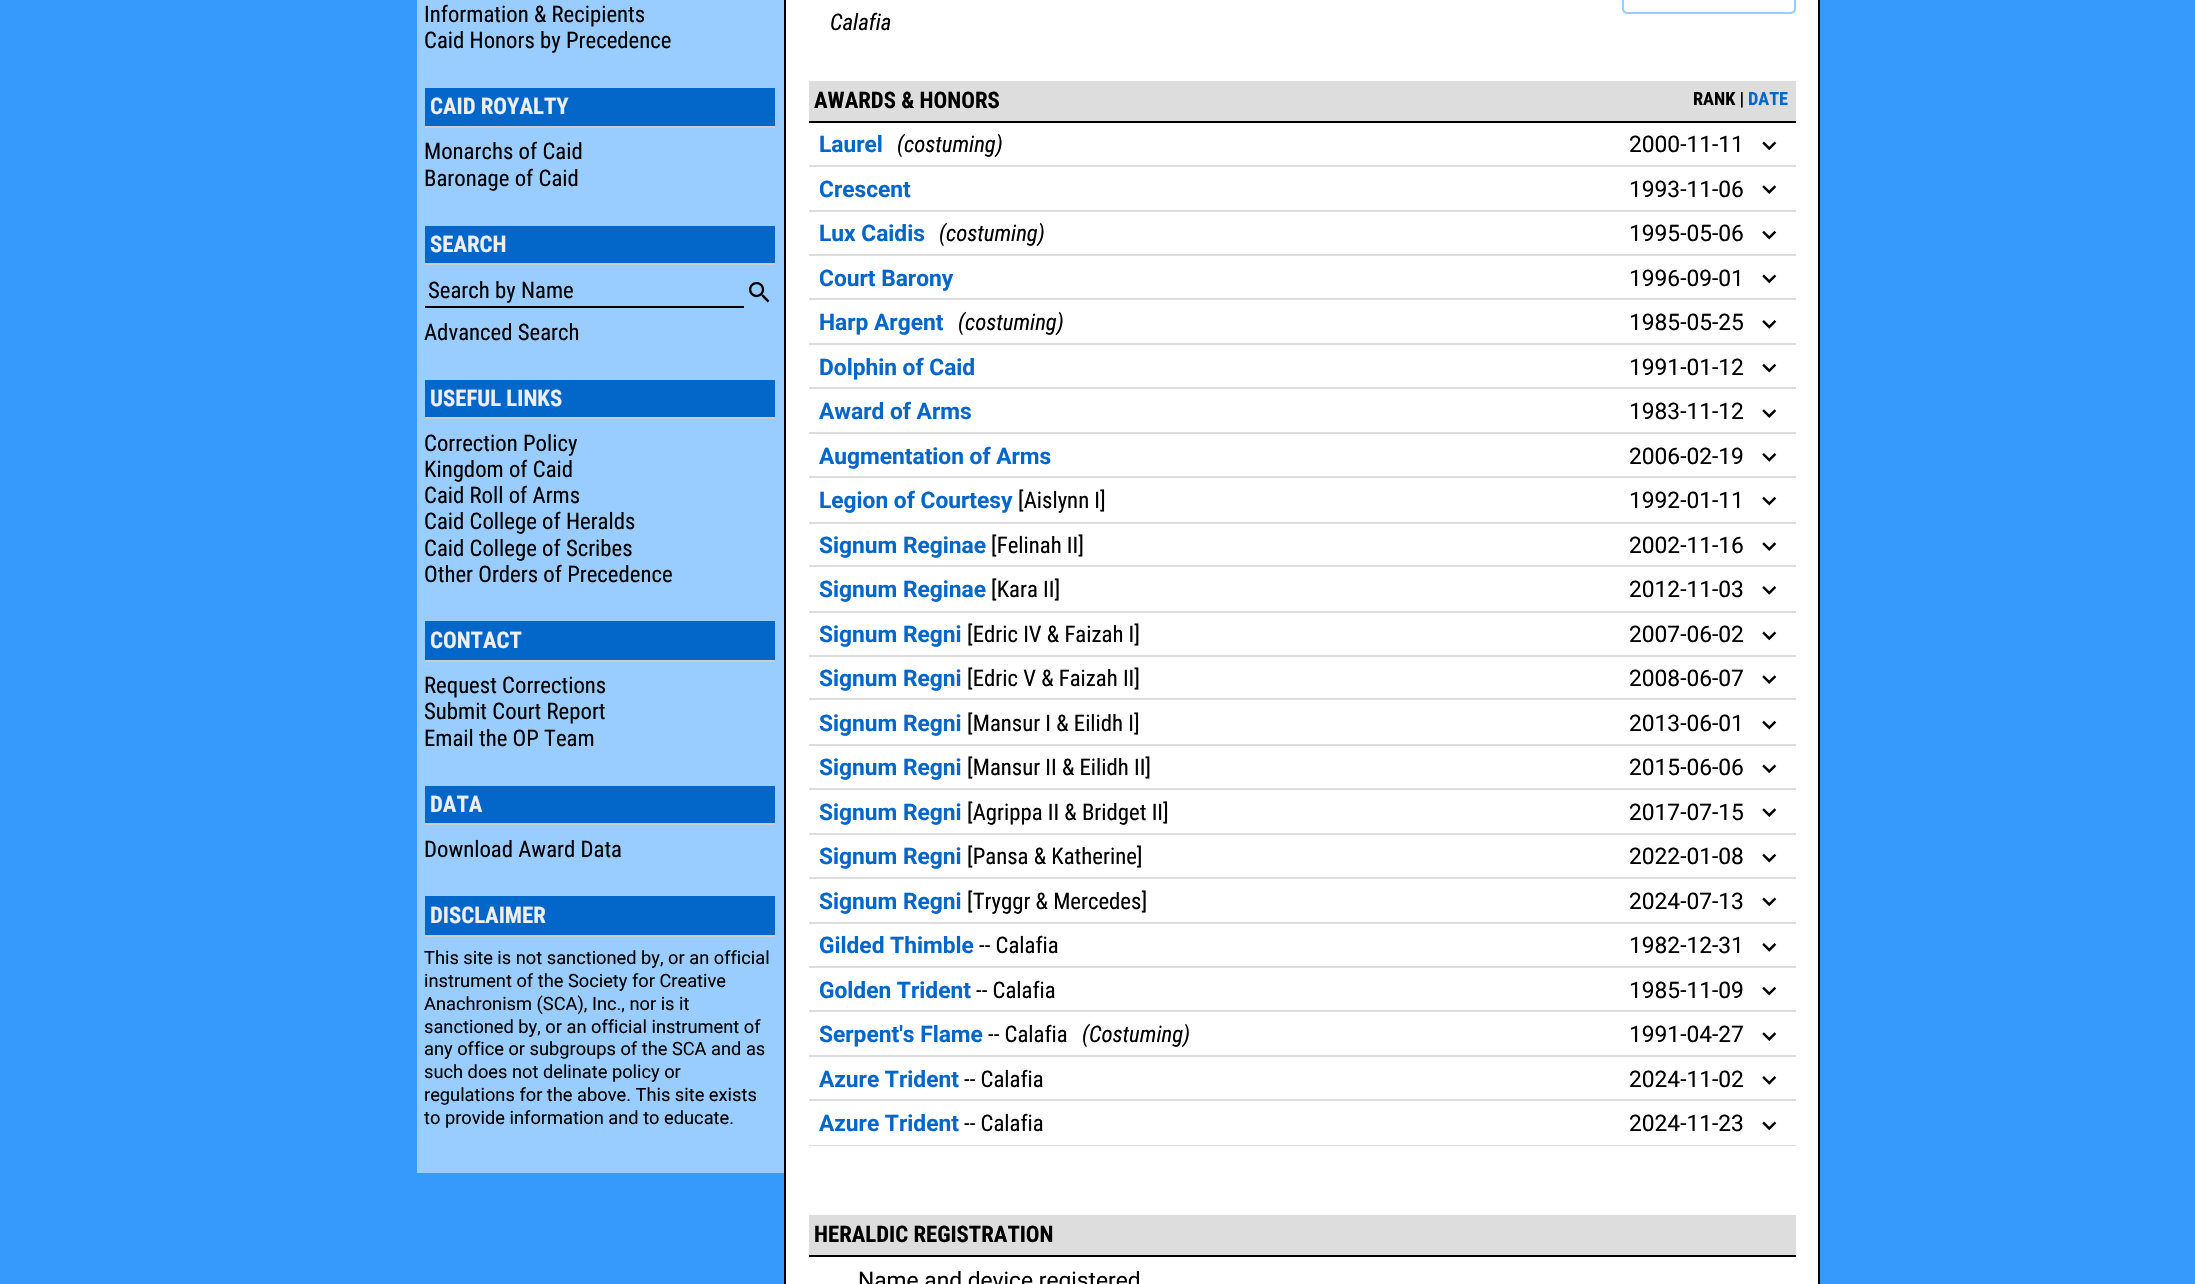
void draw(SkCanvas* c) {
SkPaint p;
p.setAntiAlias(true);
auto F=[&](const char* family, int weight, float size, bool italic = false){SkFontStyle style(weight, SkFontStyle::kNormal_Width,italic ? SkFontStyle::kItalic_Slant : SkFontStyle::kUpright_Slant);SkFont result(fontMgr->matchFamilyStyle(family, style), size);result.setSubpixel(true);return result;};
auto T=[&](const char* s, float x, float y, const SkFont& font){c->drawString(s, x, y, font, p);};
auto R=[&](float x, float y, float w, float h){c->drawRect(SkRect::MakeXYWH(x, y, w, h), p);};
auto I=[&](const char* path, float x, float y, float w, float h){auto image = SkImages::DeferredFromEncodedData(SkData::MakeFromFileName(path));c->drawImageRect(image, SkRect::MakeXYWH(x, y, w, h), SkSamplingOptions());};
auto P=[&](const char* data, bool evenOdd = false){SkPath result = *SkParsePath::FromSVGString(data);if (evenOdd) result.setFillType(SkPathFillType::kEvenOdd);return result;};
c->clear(0xff3699fc);
p.setColor(0xff99ccff);
R(417,0,367,1173);
auto f1 = F("Roboto Condensed",400,22.75);
p.setColor(0xff000000);
T("Information & Recipients",424,22,f1);
T("Caid Honors by Precedence",424,48,f1);
p.setColor(0xff0366c9);
R(425,88,350,38);
p.setColor(0xffcccccc);
R(425,126,350,2);
auto f2 = F("Roboto Condensed",700,22.75);
p.setColor(0xffeeeeee);
T("CAID ROYALTY",430,114,f2);
p.setColor(0xff000000);
T("Monarchs of Caid",424,159,f1);
T("Baronage of Caid",424,186,f1);
p.setColor(0xff0366c9);
R(425,226,350,37);
p.setColor(0xffcccccc);
R(425,263,350,2);
p.setColor(0xffeeeeee);
T("SEARCH",430,252,f2);
p.setColor(0xff000000);
R(425,306,319,2);
T("Search by Name",428,298,f1);
I("1.png",749,282,21,21);
T("Advanced Search",424,340,f1);
p.setColor(0xff0366c9);
R(425,380,350,37);
p.setColor(0xffcccccc);
R(425,417,350,2);
p.setColor(0xffeeeeee);
T("USEFUL LINKS",430,406,f2);
p.setColor(0xff000000);
T("Correction Policy",424,451,f1);
T("Kingdom of Caid",424,477,f1);
T("Caid Roll of Arms",424,503,f1);
T("Caid College of Heralds",424,529,f1);
T("Caid College of Scribes",424,556,f1);
T("Other Orders of Precedence",424,582,f1);
p.setColor(0xff0366c9);
R(425,621,350,39);
p.setColor(0xffcccccc);
R(425,660,350,2);
p.setColor(0xffeeeeee);
T("CONTACT",430,648,f2);
p.setColor(0xff000000);
T("Request Corrections",424,693,f1);
T("Submit Court Report",424,719,f1);
T("Email the OP Team",424,746,f1);
p.setColor(0xff0366c9);
R(425,786,350,37);
p.setColor(0xffcccccc);
R(425,823,350,2);
p.setColor(0xffeeeeee);
T("DATA",430,812,f2);
p.setColor(0xff000000);
T("Download Award Data",424,857,f1);
p.setColor(0xff0366c9);
R(425,896,350,39);
p.setColor(0xffcccccc);
R(425,935,350,2);
p.setColor(0xffeeeeee);
T("DISCLAIMER",430,923,f2);
auto f3 = F("Roboto",400,18.25);
p.setColor(0xff000000);
T("This site is not sanctioned by, or an official",424,964,f3);
T("instrument of the Society for Creative",424,987,f3);
T("Anachronism (SCA), Inc., nor is it",424,1010,f3);
T("sanctioned by, or an official instrument of",424,1033,f3);
T("any office or subgroups of the SCA and as",424,1055,f3);
T("such does not delinate policy or",424,1078,f3);
T("regulations for the above. This site exists",424,1101,f3);
T("to provide information and to educate.",424,1124,f3);
p.setColor(0xffffffff);
R(786,0,1032,1284);
p.setColor(0xff000000);
R(1818,0,2,1284);
R(784,0,2,1284);
p.setColor(0xff99ccff);
c->drawPath(P("M1628-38h126v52h-126c-3 0-6-2-6-5v-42c0-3 3-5 6-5zm0 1h126v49h-126c-2 0-4-1-4-3v-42c0-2 2-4 4-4z",true),p);
c->drawPath(P("M1754-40h36c3 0 6 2 6 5v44c0 3-3 5-6 5h-36zm0 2h36c2 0 4 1 4 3v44c0 2-2 3-4 3h-36z",true),p);
auto f4 = F("Roboto Condensed",400,22.75,true);
p.setColor(0xff000000);
T("Calafia",830,30,f4);
p.setColor(0xffdddddd);
R(809,81,987,40);
p.setColor(0xff000000);
R(809,121,987,2);
T("AWARDS & HONORS",814,108,f2);
auto f5 = F("Roboto Condensed",700,18.25);
T("RANK |",1693,105,f5);
p.setColor(0xff0366c9);
T("DATE",1748,105,f5);
p.setColor(0xffdddddd);
R(809,165,987,2);
auto f6 = F("Roboto",700,22.75);
p.setColor(0xff0366c9);
T("Laurel",819,152,f6);
p.setColor(0xff000000);
T("(costuming)",897,152,f4);
auto f7 = F("Roboto",400,22.75);
T("2000-11-11",1629,152,f7);
I("2.png",1762,141,15,10);
p.setColor(0xffdddddd);
R(809,210,987,2);
p.setColor(0xff0366c9);
T("Crescent",819,197,f6);
p.setColor(0xff000000);
T("1993-11-06",1629,197,f7);
I("3.png",1762,185,14,9);
p.setColor(0xffdddddd);
R(809,254,987,2);
p.setColor(0xff0366c9);
T("Lux Caidis",819,241,f6);
p.setColor(0xff000000);
T("(costuming)",939,241,f4);
T("1995-05-06",1629,241,f7);
I("4.png",1762,230,15,10);
p.setColor(0xffdddddd);
R(809,298,987,2);
p.setColor(0xff0366c9);
T("Court Barony",819,286,f6);
p.setColor(0xff000000);
T("1996-09-01",1629,286,f7);
I("2.png",1762,274,15,10);
p.setColor(0xffdddddd);
R(809,343,987,2);
p.setColor(0xff0366c9);
T("Harp Argent",819,330,f6);
p.setColor(0xff000000);
T("(costuming)",958,330,f4);
T("1985-05-25",1629,330,f7);
I("5.png",1762,320,15,9);
p.setColor(0xffdddddd);
R(809,387,987,2);
p.setColor(0xff0366c9);
T("Dolphin of Caid",819,375,f6);
p.setColor(0xff000000);
T("1991-01-12",1629,375,f7);
I("4.png",1762,363,15,10);
p.setColor(0xffdddddd);
R(809,432,987,2);
p.setColor(0xff0366c9);
T("Award of Arms",819,419,f6);
p.setColor(0xff000000);
T("1983-11-12",1629,419,f7);
I("3.png",1762,409,14,9);
p.setColor(0xffdddddd);
R(809,476,987,2);
p.setColor(0xff0366c9);
T("Augmentation of Arms",819,464,f6);
p.setColor(0xff000000);
T("2006-02-19",1629,464,f7);
I("5.png",1762,453,15,9);
p.setColor(0xffdddddd);
R(809,522,987,2);
p.setColor(0xff0366c9);
T("Legion of Courtesy",819,508,f6);
p.setColor(0xff000000);
T("[Aislynn I]",1018,508,f1);
T("1992-01-11",1629,508,f7);
I("4.png",1762,496,15,10);
p.setColor(0xffdddddd);
R(809,565,987,2);
p.setColor(0xff0366c9);
T("Signum Reginae",819,553,f6);
p.setColor(0xff000000);
T("[Felinah II]",991,553,f1);
T("2002-11-16",1629,553,f7);
I("3.png",1762,542,14,9);
p.setColor(0xffdddddd);
R(809,611,987,2);
p.setColor(0xff0366c9);
T("Signum Reginae",819,597,f6);
p.setColor(0xff000000);
T("[Kara II]",991,597,f1);
T("2012-11-03",1629,597,f7);
I("5.png",1762,586,15,9);
p.setColor(0xffdddddd);
R(809,655,987,2);
p.setColor(0xff0366c9);
T("Signum Regni",819,642,f6);
p.setColor(0xff000000);
T("[Edric IV & Faizah I]",967,642,f1);
T("2007-06-02",1629,642,f7);
I("2.png",1762,631,15,10);
p.setColor(0xffdddddd);
R(809,698,987,2);
p.setColor(0xff0366c9);
T("Signum Regni",819,686,f6);
p.setColor(0xff000000);
T("[Edric V & Faizah II]",967,686,f1);
T("2008-06-07",1629,686,f7);
I("3.png",1762,675,14,9);
p.setColor(0xffdddddd);
R(809,744,987,2);
p.setColor(0xff0366c9);
T("Signum Regni",819,731,f6);
p.setColor(0xff000000);
T("[Mansur I & Eilidh I]",967,731,f1);
T("2013-06-01",1629,731,f7);
I("4.png",1762,720,15,10);
p.setColor(0xffdddddd);
R(809,788,987,2);
p.setColor(0xff0366c9);
T("Signum Regni",819,775,f6);
p.setColor(0xff000000);
T("[Mansur II & Eilidh II]",967,775,f1);
T("2015-06-06",1629,775,f7);
I("2.png",1762,764,15,10);
p.setColor(0xffdddddd);
R(809,833,987,2);
p.setColor(0xff0366c9);
T("Signum Regni",819,820,f6);
p.setColor(0xff000000);
T("[Agrippa II & Bridget II]",967,820,f1);
T("2017-07-15",1629,820,f7);
I("3.png",1762,808,14,9);
p.setColor(0xffdddddd);
R(809,877,987,2);
p.setColor(0xff0366c9);
T("Signum Regni",819,864,f6);
p.setColor(0xff000000);
T("[Pansa & Katherine]",967,864,f1);
T("2022-01-08",1629,864,f7);
I("4.png",1762,853,15,10);
p.setColor(0xffdddddd);
R(809,922,987,2);
p.setColor(0xff0366c9);
T("Signum Regni",819,909,f6);
p.setColor(0xff000000);
T("[Tryggr & Mercedes]",967,909,f1);
T("2024-07-13",1629,909,f7);
I("2.png",1762,897,15,10);
p.setColor(0xffdddddd);
R(809,966,987,2);
p.setColor(0xff0366c9);
T("Gilded Thimble",819,953,f6);
p.setColor(0xff000000);
T("-- Calafia",979,953,f1);
T("1982-12-31",1629,953,f7);
I("5.png",1762,943,15,9);
p.setColor(0xffdddddd);
R(809,1010,987,2);
p.setColor(0xff0366c9);
T("Golden Trident",819,998,f6);
p.setColor(0xff000000);
T("-- Calafia",976,998,f1);
T("1985-11-09",1629,998,f7);
I("4.png",1762,986,15,10);
p.setColor(0xffdddddd);
R(809,1055,987,2);
p.setColor(0xff0366c9);
T("Serpent's Flame",819,1042,f6);
p.setColor(0xff000000);
T("-- Calafia",988,1042,f1);
T("(Costuming)",1082,1042,f4);
T("1991-04-27",1629,1042,f7);
I("3.png",1762,1032,14,9);
p.setColor(0xffdddddd);
R(809,1099,987,2);
p.setColor(0xff0366c9);
T("Azure Trident",819,1087,f6);
p.setColor(0xff000000);
T("-- Calafia",964,1087,f1);
T("2024-11-02",1629,1087,f7);
I("5.png",1762,1076,15,9);
p.setColor(0xffdddddd);
R(809,1145,987,1);
p.setColor(0xff0366c9);
T("Azure Trident",819,1131,f6);
p.setColor(0xff000000);
T("-- Calafia",964,1131,f1);
T("2024-11-23",1629,1131,f7);
I("2.png",1762,1121,15,10);
p.setColor(0xffdddddd);
R(809,1215,987,40);
p.setColor(0xff000000);
R(809,1255,987,2);
T("HERALDIC REGISTRATION",814,1242,f2);
T("Name and device registered",858,1288,f7);
}
